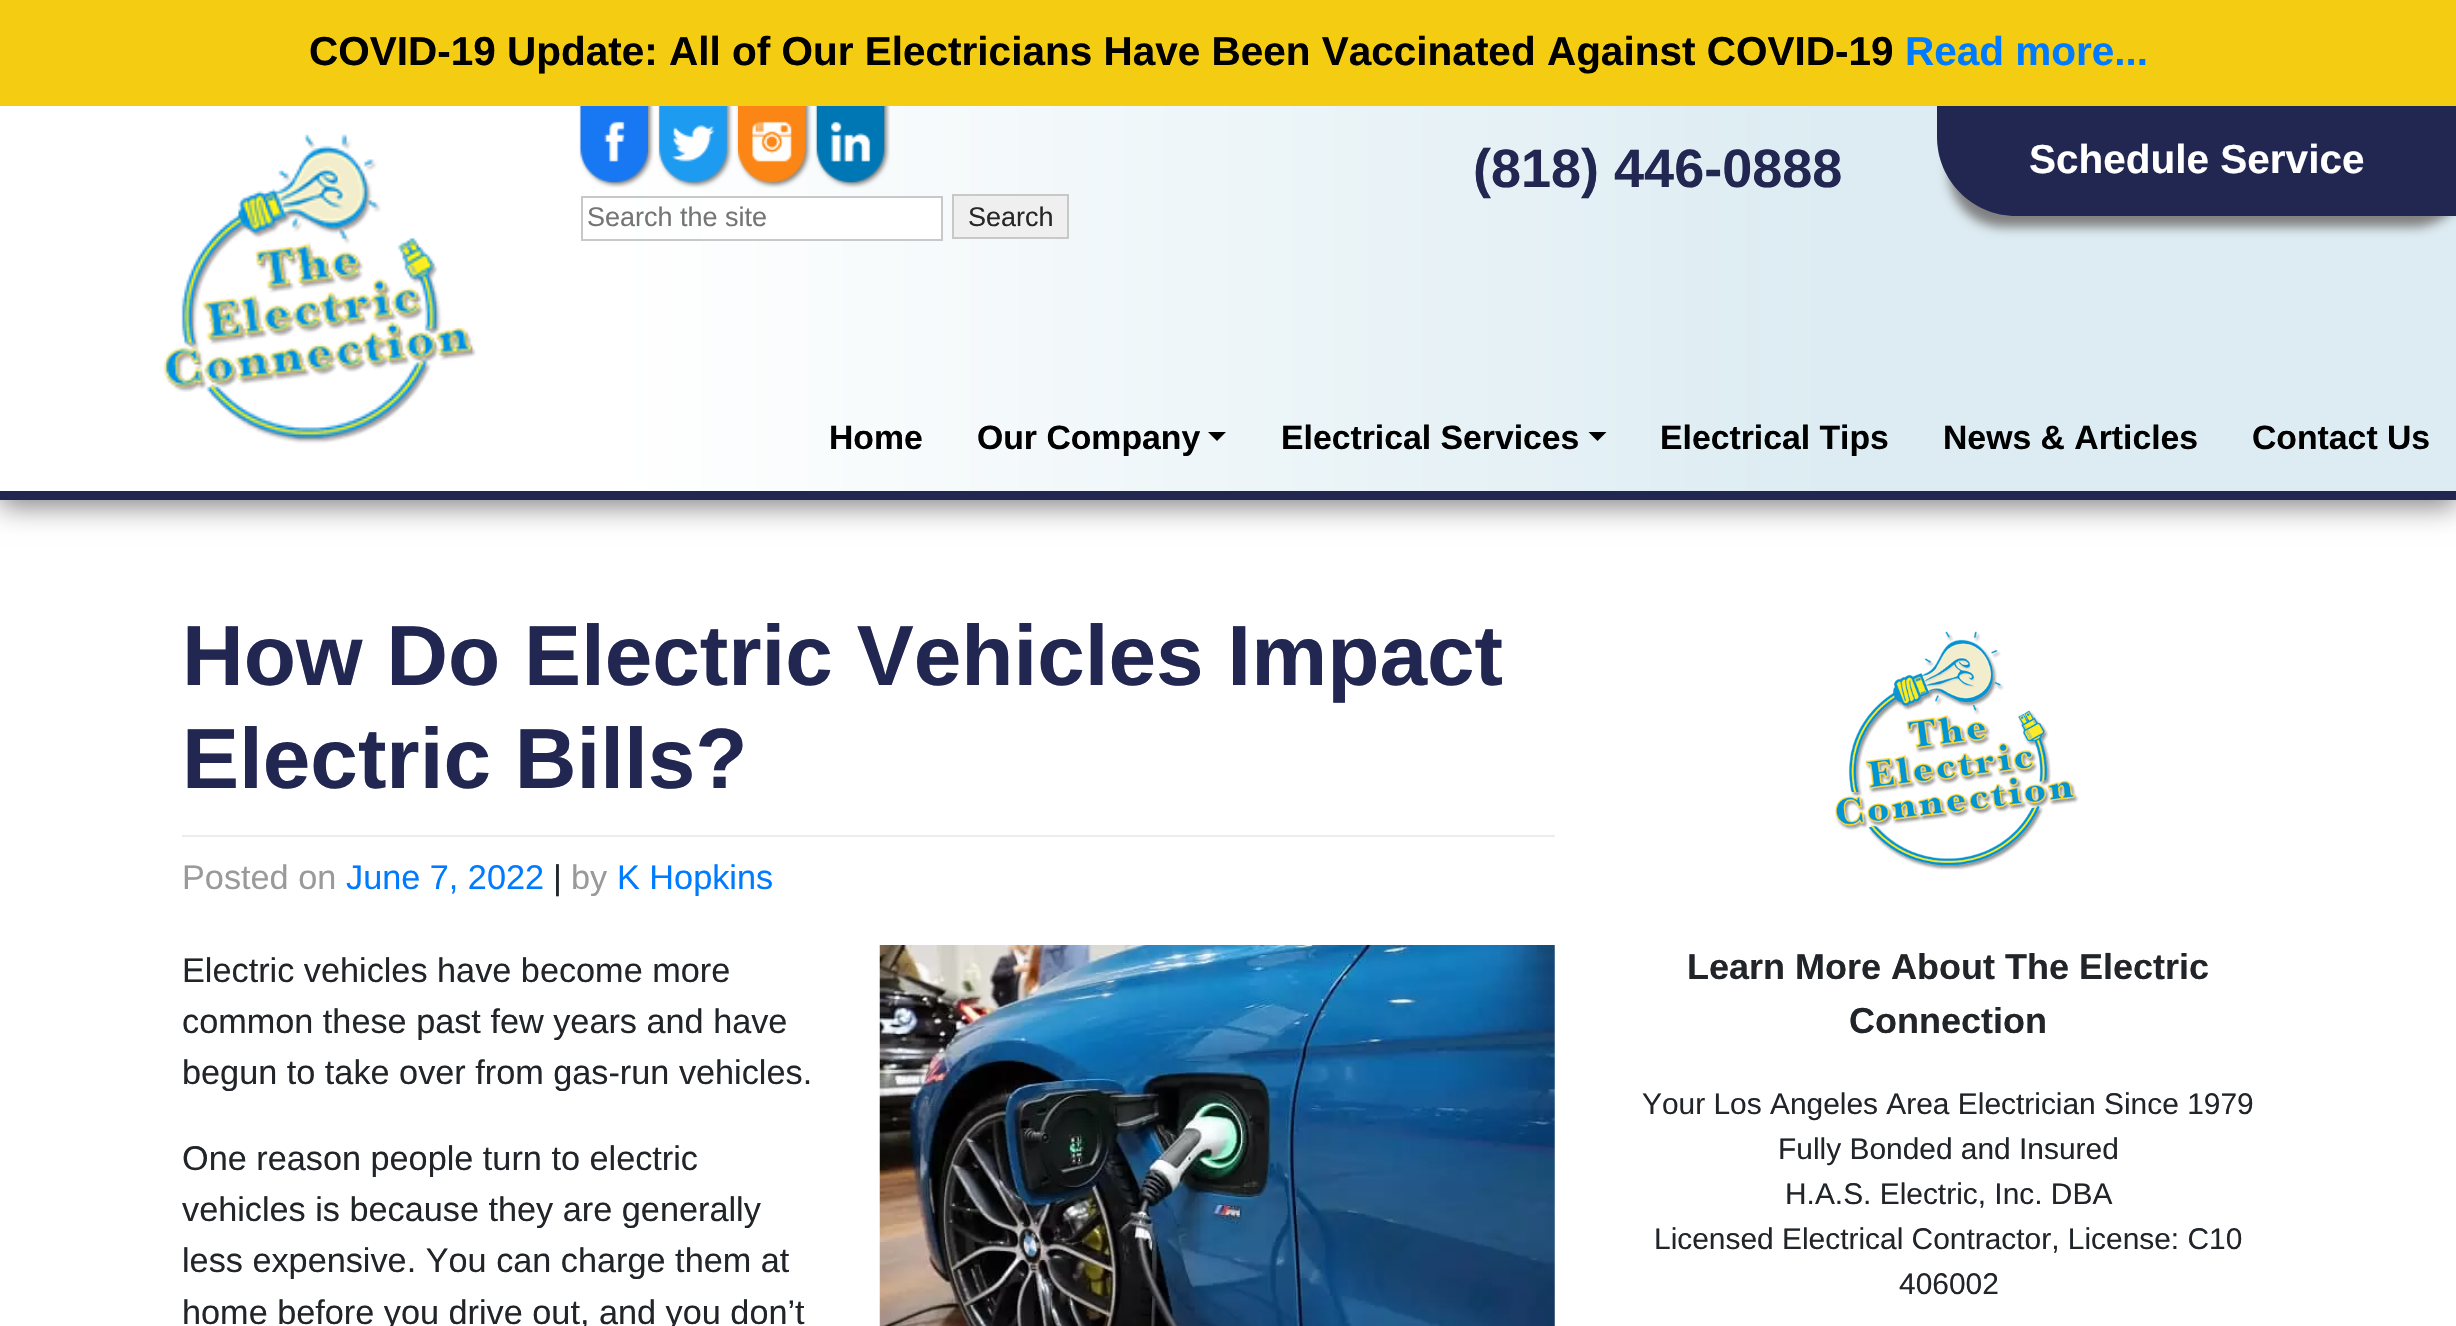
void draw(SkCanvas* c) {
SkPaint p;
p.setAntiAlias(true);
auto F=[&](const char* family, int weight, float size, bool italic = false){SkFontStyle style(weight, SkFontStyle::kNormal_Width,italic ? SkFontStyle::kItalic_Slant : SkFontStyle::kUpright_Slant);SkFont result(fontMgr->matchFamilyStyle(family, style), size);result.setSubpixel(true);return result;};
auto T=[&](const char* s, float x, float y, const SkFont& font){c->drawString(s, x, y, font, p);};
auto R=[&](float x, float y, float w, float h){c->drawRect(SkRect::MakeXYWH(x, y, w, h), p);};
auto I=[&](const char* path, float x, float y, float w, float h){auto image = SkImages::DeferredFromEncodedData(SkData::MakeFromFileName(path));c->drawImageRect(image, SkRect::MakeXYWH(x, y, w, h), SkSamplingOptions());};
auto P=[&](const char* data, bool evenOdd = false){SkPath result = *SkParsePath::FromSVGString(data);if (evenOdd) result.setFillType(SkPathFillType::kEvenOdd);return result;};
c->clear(0xffffffff);
p.setColor(0xff808080);
p.setMaskFilter(SkMaskFilter::MakeBlur(kNormal_SkBlurStyle, 13.5));
c->drawRect(SkRect::MakeXYWH(0,113,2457,393),p);
p.setMaskFilter(nullptr);
{
const SkColor colors[] = {0xffffffff,0xffdcecf2};
const float stops[] = {.25,.75};
const SkPoint ends[] = {{0,298}, {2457,298}};
p.setShader(SkGradientShader::MakeLinear(ends, colors, stops, 2, SkTileMode::kClamp));
p.setAlpha(255);
}
R(0,106,2456,385);
p.setShader(nullptr);
p.setColor(0xff808080);
p.setMaskFilter(SkMaskFilter::MakeBlur(kNormal_SkBlurStyle, 5.5));
c->drawRoundRect(SkRect::MakeXYWH(1949,117,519,110),79,79,p);
p.setMaskFilter(nullptr);
p.setColor(0xfff4cc12);
R(0,0,2456,106);
auto f1 = F("Liberation Sans",700,40.5);
p.setColor(0xff000000);
T("COVID-19 Update: All of Our Electricians Have Been Vaccinated Against COVID-19",309,65,f1);
p.setColor(0xff007bff);
T("Read more...",1905,65,f1);
p.setColor(0xff222751);
R(0,491,2456,9);
I("1.png",163,134,313,310);
auto f2 = F("Liberation Sans",700,54);
T("(818) 446-0888",1473,187,f2);
c->drawPath(P("M1937 106h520v110h-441c-43.5 0-79-35.5-79-79z"),p);
p.setColor(0xffffffff);
T("Schedule Service",2029,173,f1);
I("2.png",579,106,75,82);
I("3.png",658,106,75,82);
I("4.png",736,106,76,82);
I("5.png",815,106,75,82);
R(702,198,239,41);
p.setStroke(true);
p.setStrokeWidth(2);
p.setColor(0xffc8c8c8);
c->drawRect(SkRect::MakeXYWH(582,197,360,43),p);
auto f3 = F("Liberation Sans",400,27);
p.setStroke(false);
p.setColor(0xff757575);
T("Search the site",587,226,f3);
p.setColor(0xffefefef);
c->drawRect(SkRect::MakeXYWH(953,195,115,43),p);
p.setStroke(true);
p.setColor(0xffc8c8c8);
c->drawRect(SkRect::MakeXYWH(953,195,115,43),p);
p.setStroke(false);
p.setColor(0xff272727);
T("Search",968,226,f3);
auto f4 = F("Liberation Sans",700,33.75);
p.setColor(0xff000000);
T("Home",829,449,f4);
T("Our Company",977,449,f4);
c->drawPath(P("M1208 432h18l-9 9z"),p);
T("Electrical Services",1281,449,f4);
c->drawPath(P("M1588.5 432h18l-9 9z"),p);
T("Electrical Tips",1660,449,f4);
T("News & Articles",1943,449,f4);
T("Contact Us",2252,449,f4);
p.setColor(0xffeaecef);
R(182,835,1373,2);
auto f5 = F("Liberation Sans",700,85.5);
p.setColor(0xff222751);
T("How Do Electric Vehicles Impact",182,685,f5);
T("Electric Bills?",182,788,f5);
auto f6 = F("Liberation Sans",400,34.25);
p.setColor(0xff9a9a9a);
T("Posted on",182,889,f6);
p.setColor(0xff007bff);
T("June 7, 2022",346,889,f6);
p.setColor(0xff212529);
T("|",553,889,f6);
p.setColor(0xff9a9a9a);
T("by",571,889,f6);
p.setColor(0xff007bff);
T("K Hopkins",617,889,f6);
p.setColor(0xff212529);
T("Electric vehicles have become more",182,982,f6);
I("6.png",879,945,676,381);
T("common these past few years and have",182,1033,f6);
T("begun to take over from gas-run vehicles.",182,1084,f6);
T("One reason people turn to electric",182,1170,f6);
T("vehicles is because they are generally",182,1221,f6);
T("less expensive. You can charge them at",182,1272,f6);
T("home before you drive out, and you don’t",182,1324,f6);
I("7.png",1835,631,244,239);
auto f7 = F("Liberation Sans",700,36);
T("Learn More About The Electric",1687,979,f7);
T("Connection",1849,1033,f7);
auto f8 = F("Liberation Sans",400,29.9);
T("Your Los Angeles Area Electrician Since 1979",1642,1114,f8);
T("Fully Bonded and Insured",1778,1159,f8);
T("H.A.S. Electric, Inc. DBA",1785,1204,f8);
T("Licensed Electrical Contractor, License: C10",1654,1249,f8);
T("406002",1899,1294,f8);
}
